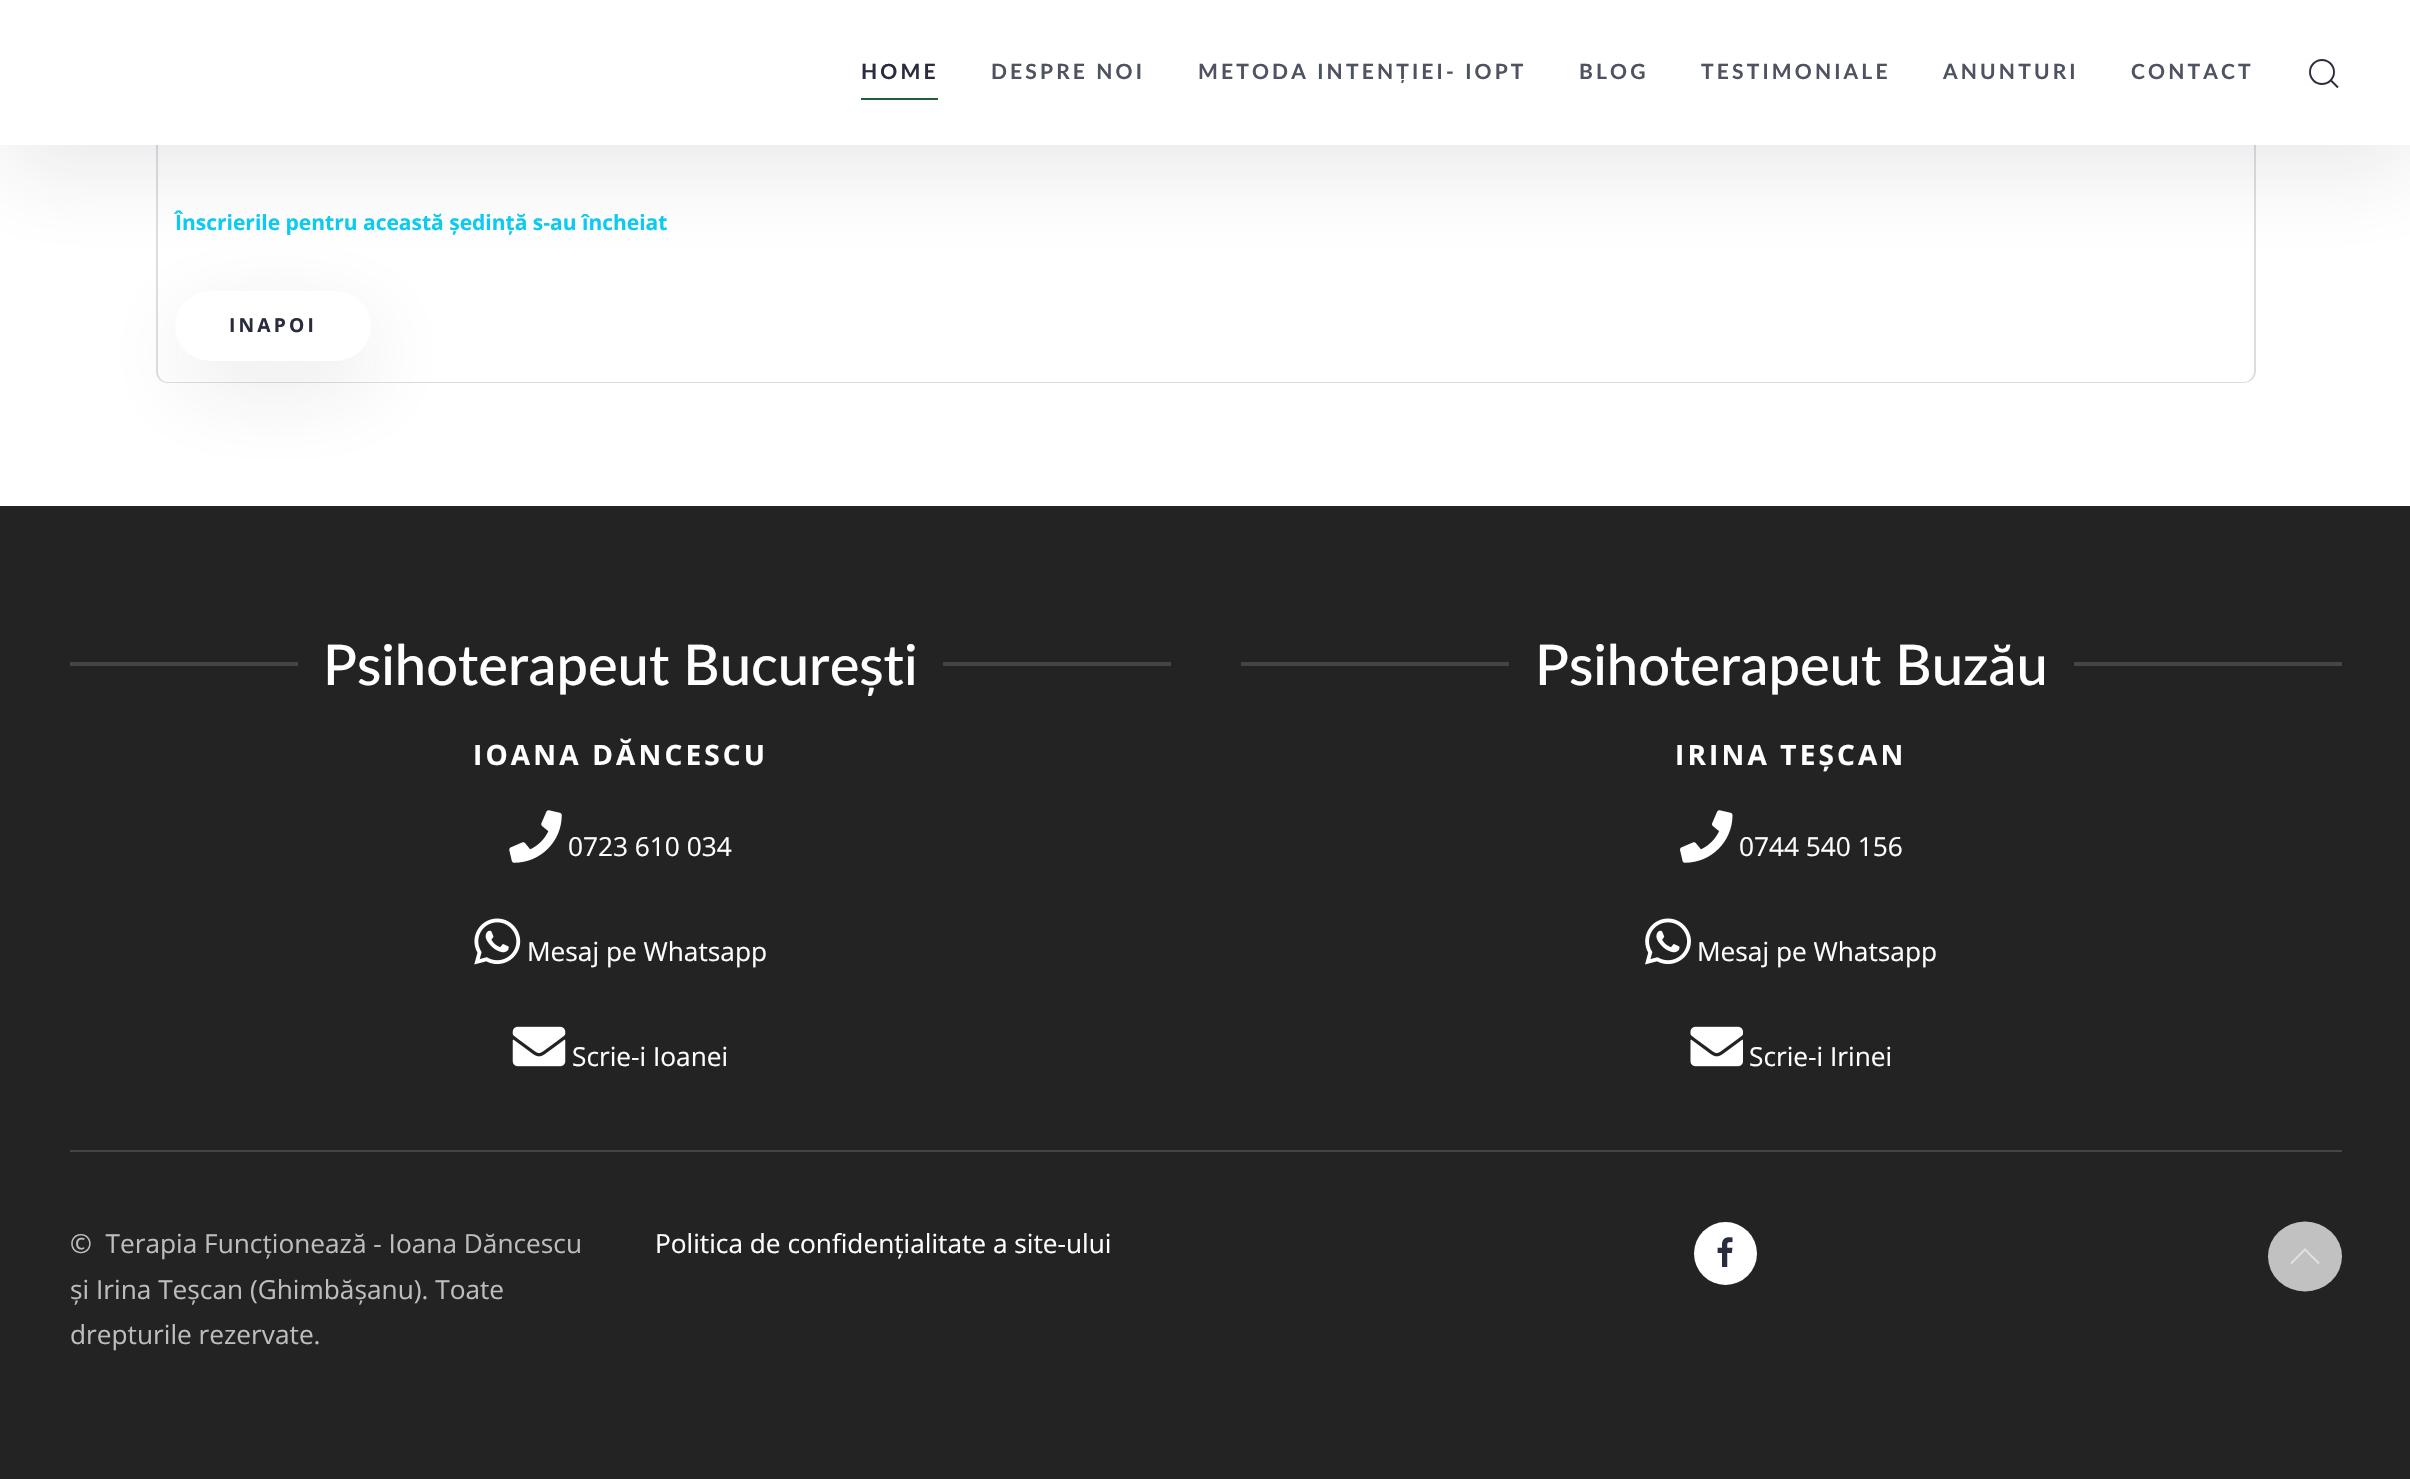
void draw(SkCanvas* c) {
SkPaint p;
p.setAntiAlias(true);
auto F=[&](const char* family, int weight, float size, bool italic = false){SkFontStyle style(weight, SkFontStyle::kNormal_Width,italic ? SkFontStyle::kItalic_Slant : SkFontStyle::kUpright_Slant);SkFont result(fontMgr->matchFamilyStyle(family, style), size);result.setSubpixel(true);return result;};
auto T=[&](const char* s, float x, float y, const SkFont& font){c->drawString(s, x, y, font, p);};
auto L=[&](const char* s, float x, float y, const SkFont& font, const SkPaint& ink, float letter, float word){std::vector<SkGlyphID> glyphs(font.countText(s, strlen(s), SkTextEncoding::kUTF8));std::vector<float> xs(glyphs.size());font.textToGlyphs(s, strlen(s), SkTextEncoding::kUTF8, glyphs);font.getXPos(glyphs, xs, x);float extra = 0;for (size_t i = 0; i < glyphs.size(); i++) {xs[i] += extra;extra += letter + word * (glyphs[i] == font.unicharToGlyph(' '));}c->drawTextBlob(SkTextBlob::MakeFromPosHGlyphs(glyphs, xs, y, font), 0, 0, ink);};
auto R=[&](float x, float y, float w, float h){c->drawRect(SkRect::MakeXYWH(x, y, w, h), p);};
auto Q=[&](float x, float y, float w, float h, float radius){c->drawRoundRect(SkRect::MakeXYWH(x, y, w, h), radius, radius, p);};
auto I=[&](const char* path, float x, float y, float w, float h){auto image = SkImages::DeferredFromEncodedData(SkData::MakeFromFileName(path));c->drawImageRect(image, SkRect::MakeXYWH(x, y, w, h), SkSamplingOptions());};
auto P=[&](const char* data, bool evenOdd = false){SkPath result = *SkParsePath::FromSVGString(data);if (evenOdd) result.setFillType(SkPathFillType::kEvenOdd);return result;};
c->clear(0xffffffff);
p.setColor(0xffdbdee1);
c->drawPath(P("M156-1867h2100v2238c0 7-6 12-12 12h-2076c-7 0-12-5-12-12zm2 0h2096v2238c0 6-5 11-10 11h-2076c-6 0-10-5-10-11z",true),p);
p.setColor(0x1a292c3d);
p.setMaskFilter(SkMaskFilter::MakeBlur(kNormal_SkBlurStyle, 44));
c->drawRoundRect(SkRect::MakeXYWH(179,317,196,70),35,35,p);
p.setMaskFilter(nullptr);
p.setColor(0xffffffff);
Q(175,291,196,70,35);
p.setColor(0x1a292c3d);
p.setMaskFilter(SkMaskFilter::MakeBlur(kNormal_SkBlurStyle, 44));
c->drawRect(SkRect::MakeXYWH(4,26,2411,146),p);
p.setMaskFilter(nullptr);
p.setColor(0xffffffff);
R(0,0,2410,145);
auto f1 = F("Lato",700,21);
p.setColor(0xff292c3d);
L("HOME",861,79,f1,p,3.15,0);
p.setColor(0xff1e6039);
R(861,98,77,2);
p.setColor(0xff4f5260);
L("DESPRE NOI",991,79,f1,p,3.15,0);
L("METODA INTENȚIEI- IOPT",1198,79,f1,p,3.15,0);
L("BLOG",1579,79,f1,p,3.15,0);
L("TESTIMONIALE",1701,79,f1,p,3.15,0);
L("ANUNTURI",1943,79,f1,p,3.15,0);
L("CONTACT",2131,79,f1,p,3.15,0);
p.setStroke(true);
p.setStrokeWidth(1.9);
p.setColor(0xff292c3d);
c->drawCircle(2322,72,12,p);
c->drawPath(P("M2331 80.5l7 7z"),p);
auto f2 = F("Open Sans",700,21);
p.setStroke(false);
p.setColor(0xff0dcaf0);
T("Înscrierile pentru această ședință s-au încheiat",175,230,f2);
auto f3 = F("Open Sans",700,19.25);
p.setColor(0xff292c3d);
L("INAPOI",229,332,f3,p,3.15,0);
p.setColor(0xff232323);
R(0,506,2410,973);
p.setColor(0xff444444);
R(70,662,228,4);
auto f4 = F("Lato",500,56);
p.setColor(0xffffffff);
T("Psihoterapeut București",323,685,f4);
p.setColor(0xff444444);
R(943,662,228,4);
auto f5 = F("Open Sans",700,28);
p.setColor(0xffffffff);
L("IOANA DĂNCESCU",473,765,f5,p,3.15,0);
I("1.png",509,810,53,53);
auto f6 = F("Open Sans",400,26.25);
T("0723 610 034",568,856,f6);
I("2.png",474,918,47,47);
T("Mesaj pe Whatsapp",527,961,f6);
I("3.png",512,1026,54,41);
T("Scrie-i Ioanei",572,1066,f6);
p.setColor(0xff444444);
R(1241,662,268,4);
p.setColor(0xffffffff);
T("Psihoterapeut Buzău",1535,685,f4);
p.setColor(0xff444444);
R(2074,662,268,4);
p.setColor(0xffffffff);
L("IRINA TEȘCAN",1675,765,f5,p,3.15,0);
I("4.png",1680,810,53,53);
T("0744 540 156",1739,856,f6);
I("5.png",1645,918,46,47);
T("Mesaj pe Whatsapp",1697,961,f6);
I("6.png",1690,1026,53,41);
T("Scrie-i Irinei",1749,1066,f6);
p.setColor(0xff444444);
R(70,1150,2272,2);
p.setColor(0xffbdbdbd);
T("©  Terapia Funcționează - Ioana Dăncescu",70,1253,f6);
T("și Irina Teșcan (Ghimbășanu). Toate",70,1299,f6);
T("drepturile rezervate.",70,1344,f6);
p.setColor(0xffffffff);
T("Politica de confidențialitate a site-ului",655,1253,f6);
c->drawCircle(1725.5,1253.5,31.5,p);
I("7.png",1717,1237,16,30);
p.setColor(0xffc1c1c1);
c->drawOval(SkRect::MakeXYWH(2268,1221.5,74,70),p);
p.setStroke(true);
p.setStrokeWidth(2.1);
p.setColor(0xffe0e0e0);
c->drawPath(P("M2291 1263.5l14-14l14 14"),p);
}
